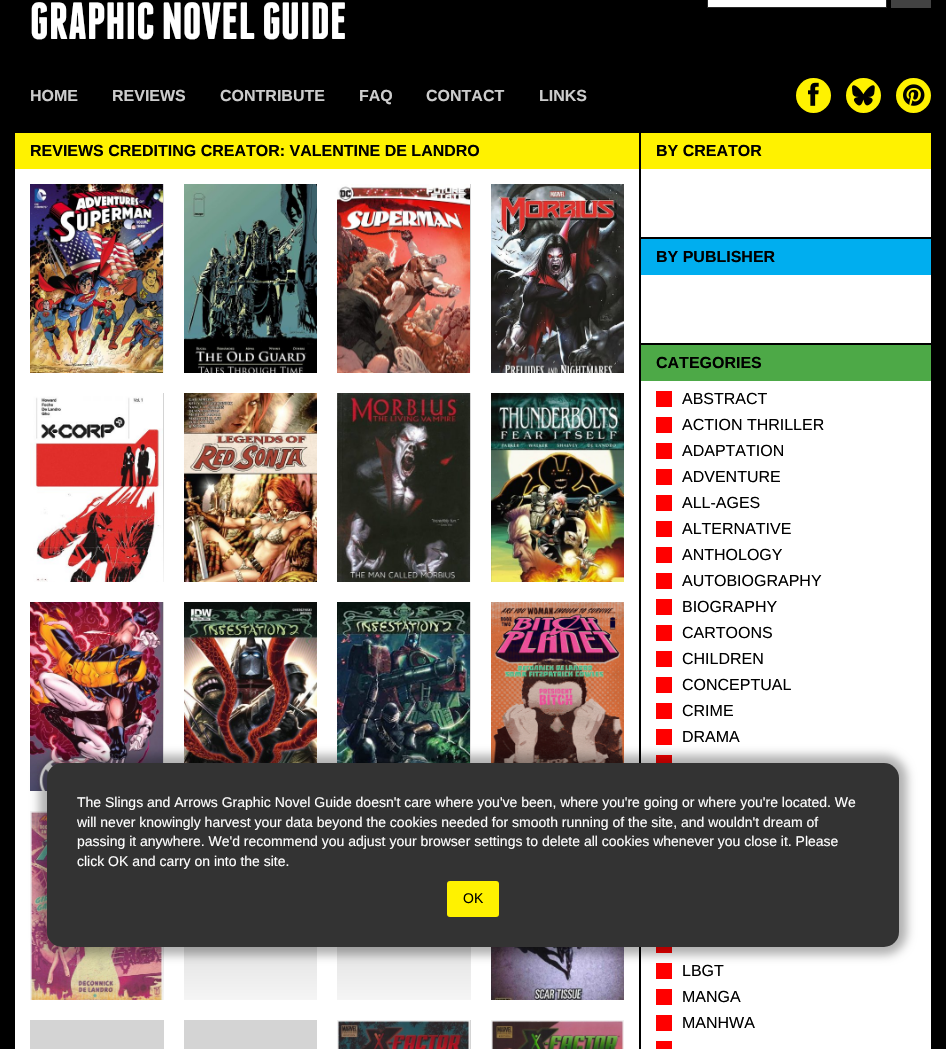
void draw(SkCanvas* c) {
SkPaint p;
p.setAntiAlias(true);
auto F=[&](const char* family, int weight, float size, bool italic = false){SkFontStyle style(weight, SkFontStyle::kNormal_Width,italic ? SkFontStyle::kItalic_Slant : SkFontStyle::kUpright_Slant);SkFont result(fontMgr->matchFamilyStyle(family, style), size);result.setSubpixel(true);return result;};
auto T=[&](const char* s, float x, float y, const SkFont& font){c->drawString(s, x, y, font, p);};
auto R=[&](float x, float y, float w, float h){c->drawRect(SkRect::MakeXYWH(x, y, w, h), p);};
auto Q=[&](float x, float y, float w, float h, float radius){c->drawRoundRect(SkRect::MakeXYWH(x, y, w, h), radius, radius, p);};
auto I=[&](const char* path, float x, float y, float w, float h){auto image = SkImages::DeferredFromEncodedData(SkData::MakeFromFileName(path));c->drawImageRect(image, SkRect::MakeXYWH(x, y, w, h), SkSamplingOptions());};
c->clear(0xff000000);
auto f1 = F("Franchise",700,52);
p.setColor(0xffffffff);
T("GRAPHIC NOVEL GUIDE",30,39,f1);
c->drawRect(SkRect::MakeXYWH(707.5,-.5,179,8),p);
p.setStroke(true);
p.setStrokeWidth(1);
p.setColor(0xff282828);
c->drawRect(SkRect::MakeXYWH(707.5,-.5,179,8),p);
p.setStroke(false);
p.setColor(0xff424242);
R(891,0,40,8);
auto f2 = F("Liberation Sans",700,16);
p.setColor(0xffcccccc);
T("HOME",30,101,f2);
T("REVIEWS",112,101,f2);
T("CONTRIBUTE",220,101,f2);
T("FAQ",359,101,f2);
T("CONTACT",426,101,f2);
T("LINKS",539,101,f2);
p.setColor(0xfffff200);
c->drawCircle(813.5,95.5,17.5,p);
I("1.png",808,82,11,24);
c->drawCircle(863.5,95.5,17.5,p);
I("2.png",852,85,23,21);
c->drawCircle(913.5,95.5,17.5,p);
I("3.png",903,84,22,22);
p.setColor(0xffffffff);
R(15,169,624,880);
p.setColor(0xfffff200);
R(15,133,624,36);
p.setColor(0xff000000);
T("REVIEWS CREDITING CREATOR: VALENTINE DE LANDRO",30,156,f2);
{
const SkColor colors[] = {0xffd4d4d4,0xfff5f5f5};
const float stops[] = {.5,1};
const SkPoint ends[] = {{97,184}, {97,373}};
p.setShader(SkGradientShader::MakeLinear(ends, colors, stops, 2, SkTileMode::kClamp));
p.setAlpha(255);
}
R(163,184,1,189);
I("4.png",30,184,133,189);
I("5.png",184,184,133,189);
{
const SkColor colors[] = {0xffd4d4d4,0xfff5f5f5};
const float stops[] = {.5,1};
const SkPoint ends[] = {{404,184}, {404,373}};
p.setShader(SkGradientShader::MakeLinear(ends, colors, stops, 2, SkTileMode::kClamp));
p.setAlpha(255);
}
R(470,184,1,189);
I("6.png",337,184,133,189);
I("7.png",491,184,133,189);
{
const SkColor colors[] = {0xffd4d4d4,0xfff5f5f5};
const float stops[] = {.5,1};
const SkPoint ends[] = {{97,393}, {97,582}};
p.setShader(SkGradientShader::MakeLinear(ends, colors, stops, 2, SkTileMode::kClamp));
p.setAlpha(255);
}
R(163,393,1,189);
I("8.png",30,393,133,189);
I("9.png",184,393,133,189);
{
const SkColor colors[] = {0xffd4d4d4,0xfff5f5f5};
const float stops[] = {.5,1};
const SkPoint ends[] = {{404,393}, {404,582}};
p.setShader(SkGradientShader::MakeLinear(ends, colors, stops, 2, SkTileMode::kClamp));
p.setAlpha(255);
}
R(470,393,1,189);
I("10.png",337,393,133,189);
I("11.png",491,393,133,189);
{
const SkColor colors[] = {0xffd4d4d4,0xfff5f5f5};
const float stops[] = {.5,1};
const SkPoint ends[] = {{97,602}, {97,791}};
p.setShader(SkGradientShader::MakeLinear(ends, colors, stops, 2, SkTileMode::kClamp));
p.setAlpha(255);
}
R(163,602,1,161);
I("12.png",30,602,133,189);
I("13.png",184,602,133,161);
{
const SkColor colors[] = {0xffd4d4d4,0xfff5f5f5};
const float stops[] = {.5,1};
const SkPoint ends[] = {{404,602}, {404,791}};
p.setShader(SkGradientShader::MakeLinear(ends, colors, stops, 2, SkTileMode::kClamp));
p.setAlpha(255);
}
R(470,602,1,161);
I("14.png",337,602,133,161);
I("15.png",491,602,133,161);
{
const SkColor colors[] = {0xffd4d4d4,0xfff5f5f5};
const float stops[] = {.5,1};
const SkPoint ends[] = {{97,811}, {97,1000}};
p.setShader(SkGradientShader::MakeLinear(ends, colors, stops, 2, SkTileMode::kClamp));
p.setAlpha(255);
}
R(163,947,1,53);
I("16.png",30,811,133,189);
{
const SkColor colors[] = {0xffd4d4d4,0xfff5f5f5};
const float stops[] = {.5,1};
const SkPoint ends[] = {{251,811}, {251,1000}};
p.setShader(SkGradientShader::MakeLinear(ends, colors, stops, 2, SkTileMode::kClamp));
p.setAlpha(255);
}
R(184,947,133,53);
{
const SkColor colors[] = {0xffd4d4d4,0xfff5f5f5};
const float stops[] = {.5,1};
const SkPoint ends[] = {{404,811}, {404,1000}};
p.setShader(SkGradientShader::MakeLinear(ends, colors, stops, 2, SkTileMode::kClamp));
p.setAlpha(255);
}
R(337,947,134,53);
I("17.png",491,947,133,53);
{
const SkColor colors[] = {0xffd4d4d4,0xfff5f5f5};
const float stops[] = {.5,1};
const SkPoint ends[] = {{97,1020}, {97,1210}};
p.setShader(SkGradientShader::MakeLinear(ends, colors, stops, 2, SkTileMode::kClamp));
p.setAlpha(255);
}
R(30,1020,134,29);
{
const SkColor colors[] = {0xffd4d4d4,0xfff5f5f5};
const float stops[] = {.5,1};
const SkPoint ends[] = {{251,1020}, {251,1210}};
p.setShader(SkGradientShader::MakeLinear(ends, colors, stops, 2, SkTileMode::kClamp));
p.setAlpha(255);
}
R(184,1020,133,29);
{
const SkColor colors[] = {0xffd4d4d4,0xfff5f5f5};
const float stops[] = {.5,1};
const SkPoint ends[] = {{404,1020}, {404,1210}};
p.setShader(SkGradientShader::MakeLinear(ends, colors, stops, 2, SkTileMode::kClamp));
p.setAlpha(255);
}
R(470,1020,1,29);
I("18.png",337,1020,133,29);
I("19.png",491,1020,133,29);
p.setShader(nullptr);
p.setColor(0xffffffff);
R(641,169,290,880);
p.setColor(0xfffff200);
R(641,133,290,36);
p.setColor(0xff000000);
T("BY CREATOR",656,156,f2);
R(641,237,290,2);
p.setColor(0xff00aeef);
R(641,239,290,36);
p.setColor(0xff000000);
T("BY PUBLISHER",656,262,f2);
R(641,343,290,2);
p.setColor(0xff4da947);
R(641,345,290,36);
p.setColor(0xff000000);
T("CATEGORIES",656,368,f2);
p.setColor(0xffff0000);
R(656,391,16,16);
auto f3 = F("Liberation Sans",400,16);
p.setColor(0xff000000);
T("ABSTRACT",682,404,f3);
p.setColor(0xffff0000);
R(656,417,16,16);
p.setColor(0xff000000);
T("ACTION THRILLER",682,430,f3);
p.setColor(0xffff0000);
R(656,443,16,16);
p.setColor(0xff000000);
T("ADAPTATION",682,456,f3);
p.setColor(0xffff0000);
R(656,469,16,16);
p.setColor(0xff000000);
T("ADVENTURE",682,482,f3);
p.setColor(0xffff0000);
R(656,495,16,16);
p.setColor(0xff000000);
T("ALL-AGES",682,508,f3);
p.setColor(0xffff0000);
R(656,521,16,16);
p.setColor(0xff000000);
T("ALTERNATIVE",682,534,f3);
p.setColor(0xffff0000);
R(656,547,16,16);
p.setColor(0xff000000);
T("ANTHOLOGY",682,560,f3);
p.setColor(0xffff0000);
R(656,573,16,16);
p.setColor(0xff000000);
T("AUTOBIOGRAPHY",682,586,f3);
p.setColor(0xffff0000);
R(656,599,16,16);
p.setColor(0xff000000);
T("BIOGRAPHY",682,612,f3);
p.setColor(0xffff0000);
R(656,625,16,16);
p.setColor(0xff000000);
T("CARTOONS",682,638,f3);
p.setColor(0xffff0000);
R(656,651,16,16);
p.setColor(0xff000000);
T("CHILDREN",682,664,f3);
p.setColor(0xffff0000);
R(656,677,16,16);
p.setColor(0xff000000);
T("CONCEPTUAL",682,690,f3);
p.setColor(0xffff0000);
R(656,703,16,16);
p.setColor(0xff000000);
T("CRIME",682,716,f3);
p.setColor(0xffff0000);
R(656,729,16,16);
p.setColor(0xff000000);
T("DRAMA",682,742,f3);
p.setColor(0xffff0000);
R(656,755,16,8);
R(656,947,16,6);
R(656,963,16,16);
p.setColor(0xff000000);
T("LBGT",682,976,f3);
p.setColor(0xffff0000);
R(656,989,16,16);
p.setColor(0xff000000);
T("MANGA",682,1002,f3);
p.setColor(0xffff0000);
R(656,1015,16,16);
p.setColor(0xff000000);
T("MANHWA",682,1028,f3);
p.setColor(0xffff0000);
R(656,1041,16,8);
p.setColor(0x4d000000);
p.setMaskFilter(SkMaskFilter::MakeBlur(kNormal_SkBlurStyle, 5));
c->drawRoundRect(SkRect::MakeXYWH(39,755,868,200),23,23,p);
p.setMaskFilter(nullptr);
p.setColor(0xff333333);
Q(47,763,852,184,15);
auto f4 = F("Liberation Sans",400,14);
p.setColor(0xffffffff);
T("The Slings and Arrows Graphic Novel Guide doesn't care where you've been, where you're going or where you're located. We",77,807,f4);
T("will never knowingly harvest your data beyond the cookies needed for smooth running of the site, and wouldn't dream of",77,827,f4);
T("passing it anywhere. We'd recommend you adjust your browser settings to delete all cookies whenever you close it. Please",77,846,f4);
T("click OK and carry on into the site.",77,866,f4);
p.setColor(0xfffff200);
Q(447,881,52,36,3);
p.setColor(0xff000000);
T("OK",463,903,f4);
}
